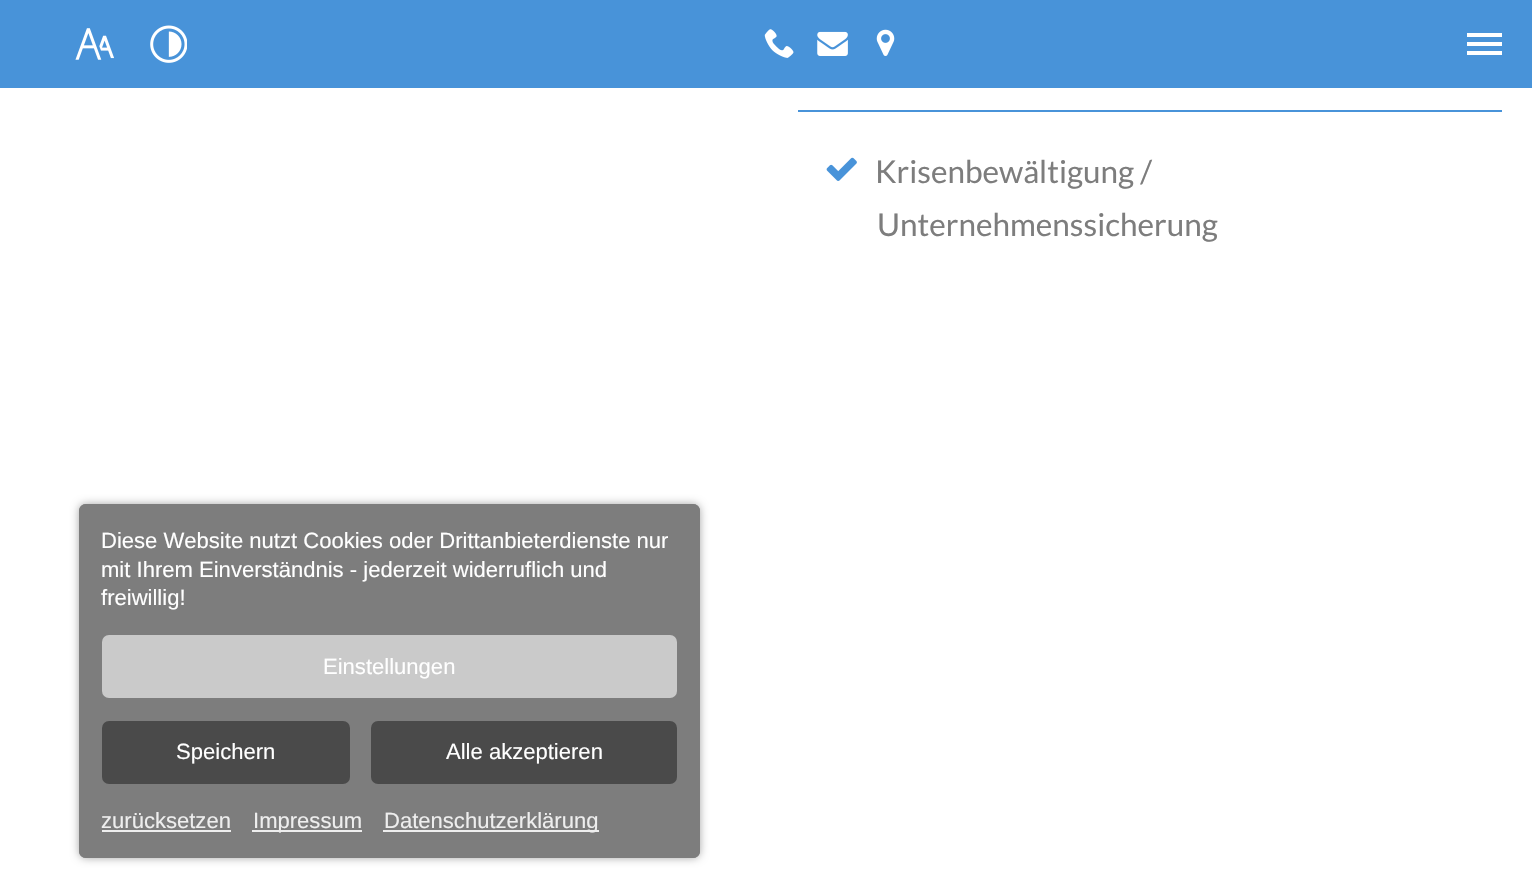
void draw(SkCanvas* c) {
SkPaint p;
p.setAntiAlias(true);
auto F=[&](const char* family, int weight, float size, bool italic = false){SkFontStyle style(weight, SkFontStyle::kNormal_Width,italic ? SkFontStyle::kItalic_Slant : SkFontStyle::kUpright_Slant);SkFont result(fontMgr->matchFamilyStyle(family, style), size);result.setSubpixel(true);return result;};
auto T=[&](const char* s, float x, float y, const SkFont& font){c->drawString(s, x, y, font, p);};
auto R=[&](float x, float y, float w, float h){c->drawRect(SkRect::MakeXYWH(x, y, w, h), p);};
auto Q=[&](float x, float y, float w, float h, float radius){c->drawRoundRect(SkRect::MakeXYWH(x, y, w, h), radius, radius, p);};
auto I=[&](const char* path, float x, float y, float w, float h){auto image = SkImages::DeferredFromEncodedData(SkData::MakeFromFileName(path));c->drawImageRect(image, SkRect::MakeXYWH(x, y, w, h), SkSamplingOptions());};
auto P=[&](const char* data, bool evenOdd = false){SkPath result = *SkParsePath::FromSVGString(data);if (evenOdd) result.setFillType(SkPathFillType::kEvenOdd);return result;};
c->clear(0xffffffff);
p.setColor(0xff4893d9);
R(0,0,1532,88);
I("1.png",75,28,39,32);
I("2.png",150,25,37,38);
I("3.png",764,29,30,29);
I("4.png",817,31,31,25);
I("5.png",876,29,19,27);
p.setColor(0xffffffff);
R(1467,42,35,4);
R(1467,33,35,4);
R(1467,51,35,4);
p.setColor(0xff4893d9);
R(798,110,704,2);
I("6.png",826,157,31,24);
auto f1 = F("Lato",400,31.5);
p.setColor(0xff7d7d7d);
T("Krisenbewältigung /",875,183,f1);
T("Unternehmenssicherung",877,236,f1);
p.setColor(0x59000000);
p.setMaskFilter(SkMaskFilter::MakeBlur(kNormal_SkBlurStyle, 4.5));
c->drawRoundRect(SkRect::MakeXYWH(79,504,621,354),7,7,p);
p.setMaskFilter(nullptr);
p.setColor(0xff7d7d7d);
Q(79,504,621,354,7);
c->drawPath(P("M86 504h607c4 0 7 3 7 7v210h-621v-210c0-4 3-7 7-7z"),p);
auto f2 = F("Liberation Sans",400,22.05);
p.setColor(0xffffffff);
T("Diese Website nutzt Cookies oder Drittanbieterdienste nur",101,548,f2);
T("mit Ihrem Einverständnis - jederzeit widerruflich und",101,577,f2);
T("freiwillig!",101,605,f2);
p.setColor(0xffcacaca);
Q(102,635,575,63,7);
p.setColor(0xffffffff);
T("Einstellungen",323,674,f2);
p.setColor(0xff4a4a4a);
Q(102,721,248,63,7);
p.setColor(0xffffffff);
T("Speichern",176,759,f2);
p.setColor(0xff4a4a4a);
Q(371,721,306,63,7);
p.setColor(0xffffffff);
T("Alle akzeptieren",446,759,f2);
p.setColor(0xff7d7d7d);
c->drawPath(P("M79 784h621v67c0 4-3 7-7 7h-607c-4 0-7-3-7-7z"),p);
p.setColor(0xffeeeeee);
T("zurücksetzen",101,828,f2);
R(102,830,129,2);
R(252,830,110,2);
T("Impressum",253,828,f2);
R(383,830,216,2);
T("Datenschutzerklärung",384,828,f2);
}
